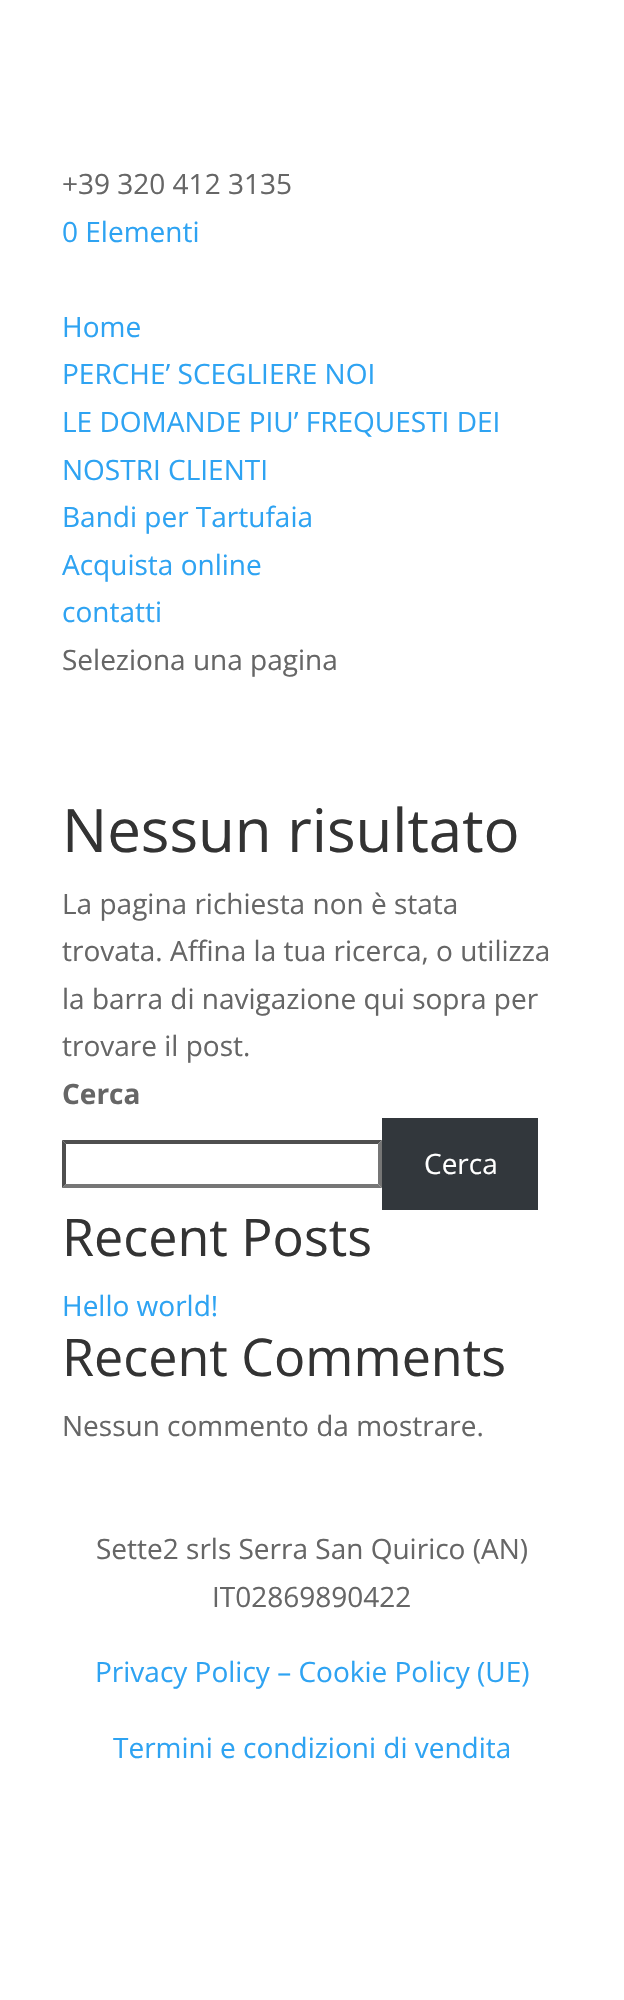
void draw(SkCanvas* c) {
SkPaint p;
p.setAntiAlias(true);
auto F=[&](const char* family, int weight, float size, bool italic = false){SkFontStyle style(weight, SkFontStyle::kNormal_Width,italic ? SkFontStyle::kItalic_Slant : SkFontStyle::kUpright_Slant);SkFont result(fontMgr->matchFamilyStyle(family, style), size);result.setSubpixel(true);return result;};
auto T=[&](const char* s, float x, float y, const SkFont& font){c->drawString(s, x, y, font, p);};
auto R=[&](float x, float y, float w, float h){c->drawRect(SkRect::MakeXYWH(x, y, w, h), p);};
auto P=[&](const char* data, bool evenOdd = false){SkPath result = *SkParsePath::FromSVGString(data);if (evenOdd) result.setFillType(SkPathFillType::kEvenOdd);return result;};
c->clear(0xffffffff);
auto f1 = F("Open Sans",400,28);
p.setColor(0xff666666);
T("+39 320 412 3135",62,194,f1);
p.setColor(0xff2ea3f2);
T("0 Elementi",62,242,f1);
T("Home",62,337,f1);
T("PERCHE’ SCEGLIERE NOI",62,384,f1);
T("LE DOMANDE PIU’ FREQUESTI DEI",62,432,f1);
T("NOSTRI CLIENTI",62,480,f1);
T("Bandi per Tartufaia",62,527,f1);
T("Acquista online",62,575,f1);
T("contatti",62,622,f1);
p.setColor(0xff666666);
T("Seleziona una pagina",62,670,f1);
auto f2 = F("Open Sans",400,60);
p.setColor(0xff333333);
T("Nessun risultato",62,852,f2);
p.setColor(0xff666666);
T("La pagina richiesta non è stata",62,914,f1);
T("trovata. Affina la tua ricerca, o utilizza",62,961,f1);
T("la barra di navigazione qui sopra per",62,1009,f1);
T("trovare il post.",62,1056,f1);
auto f3 = F("Open Sans",700,28);
T("Cerca",62,1104,f3);
p.setColor(0xff4f4f4f);
c->drawPath(P("M62 1140h320l-4 4h-312z"),p);
p.setColor(0xff767676);
c->drawPath(P("M382 1140v48l-4-4v-40z"),p);
c->drawPath(P("M382 1188h-320l4-4h312z"),p);
p.setColor(0xff4f4f4f);
c->drawPath(P("M62 1188v-48l4 4v40z"),p);
p.setColor(0xff32373c);
R(382,1118,156,92);
p.setColor(0xffffffff);
T("Cerca",424,1174,f1);
auto f4 = F("Open Sans",400,52);
p.setColor(0xff333333);
T("Recent Posts",62,1256,f4);
p.setColor(0xff2ea3f2);
T("Hello world!",62,1316,f1);
p.setColor(0xff333333);
T("Recent Comments",62,1376,f4);
p.setColor(0xff666666);
T("Nessun commento da mostrare.",62,1436,f1);
T("Sette2 srls Serra San Quirico (AN)",96,1559,f1);
T("IT02869890422",212,1607,f1);
p.setColor(0xff2ea3f2);
T("Privacy Policy – Cookie Policy (UE)",95,1682,f1);
T("Termini e condizioni di vendita",113,1758,f1);
}
